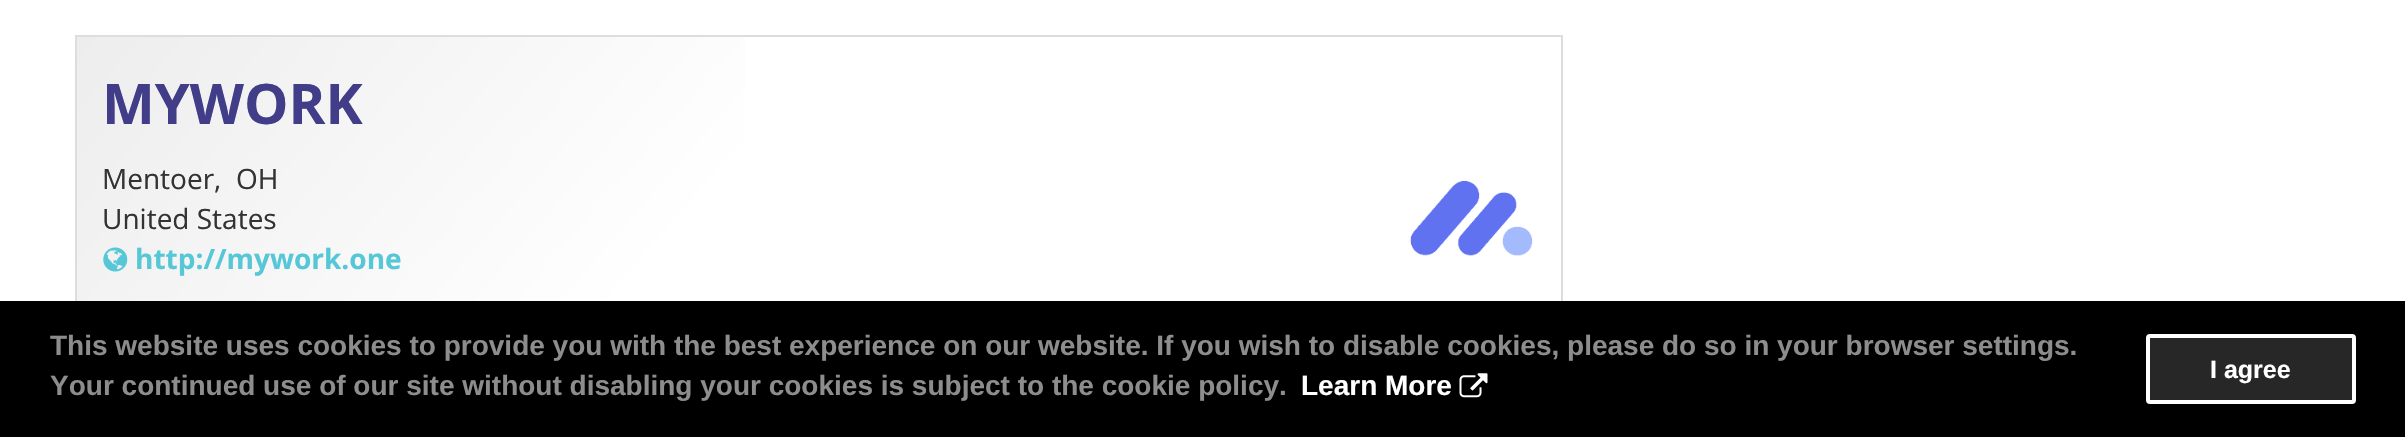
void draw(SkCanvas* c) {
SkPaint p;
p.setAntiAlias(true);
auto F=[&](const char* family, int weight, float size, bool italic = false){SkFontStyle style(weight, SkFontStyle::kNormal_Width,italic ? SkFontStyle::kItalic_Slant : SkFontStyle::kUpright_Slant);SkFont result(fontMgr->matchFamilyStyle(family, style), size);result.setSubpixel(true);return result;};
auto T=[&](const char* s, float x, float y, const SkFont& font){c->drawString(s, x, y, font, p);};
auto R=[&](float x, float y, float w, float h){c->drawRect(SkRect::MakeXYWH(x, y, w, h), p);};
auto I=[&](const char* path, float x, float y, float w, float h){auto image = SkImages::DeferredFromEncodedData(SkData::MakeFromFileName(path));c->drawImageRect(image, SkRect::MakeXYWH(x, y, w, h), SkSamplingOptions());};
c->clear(0xffffffff);
{
const SkColor colors[] = {0xffffffff,0xffededed};
const float stops[] = {.55,1};
const SkPoint ends[] = {{1311,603}, {327,-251}};
p.setShader(SkGradientShader::MakeLinear(ends, colors, stops, 2, SkTileMode::kClamp));
p.setAlpha(255);
}
R(77,37,668,264);
p.setStroke(true);
p.setStrokeWidth(2);
p.setShader(nullptr);
p.setColor(0xffdddddd);
c->drawRect(SkRect::MakeXYWH(76,36,1486,280),p);
auto f1 = F("Open Sans",700,56);
p.setStroke(false);
p.setColor(0xff413d88);
T("MYWORK",102,124,f1);
auto f2 = F("Open Sans",400,28);
p.setColor(0xff333333);
T("Mentoer,",102,189,f2);
T("OH",236,189,f2);
T("United States",102,229,f2);
I("1.png",103,247,25,25);
auto f3 = F("Open Sans",700,28);
p.setColor(0xff56c7d7);
T("http://mywork.one",135,269,f3);
I("2.png",1410,180,123,76);
p.setColor(0xff000000);
R(0,301,2405,136);
auto f4 = F("Liberation Sans",700,28);
p.setColor(0xff8d8d8d);
T("This website uses cookies to provide you with the best experience on our website. If you wish to disable cookies, please do so in your browser settings.",50,355,f4);
T("Your continued use of our site without disabling your cookies is subject to the cookie policy.",50,395,f4);
p.setColor(0xffffffff);
T("Learn More",1301,395,f4);
I("3.png",1459,373,29,25);
p.setColor(0xff272727);
c->drawRoundRect(SkRect::MakeXYWH(2148,336,206,66),2,2,p);
p.setStroke(true);
p.setStrokeWidth(4);
p.setColor(0xffffffff);
c->drawRoundRect(SkRect::MakeXYWH(2148,336,206,66),2,2,p);
auto f5 = F("Liberation Sans",700,25);
p.setStroke(false);
T("I agree",2210,378,f5);
}
